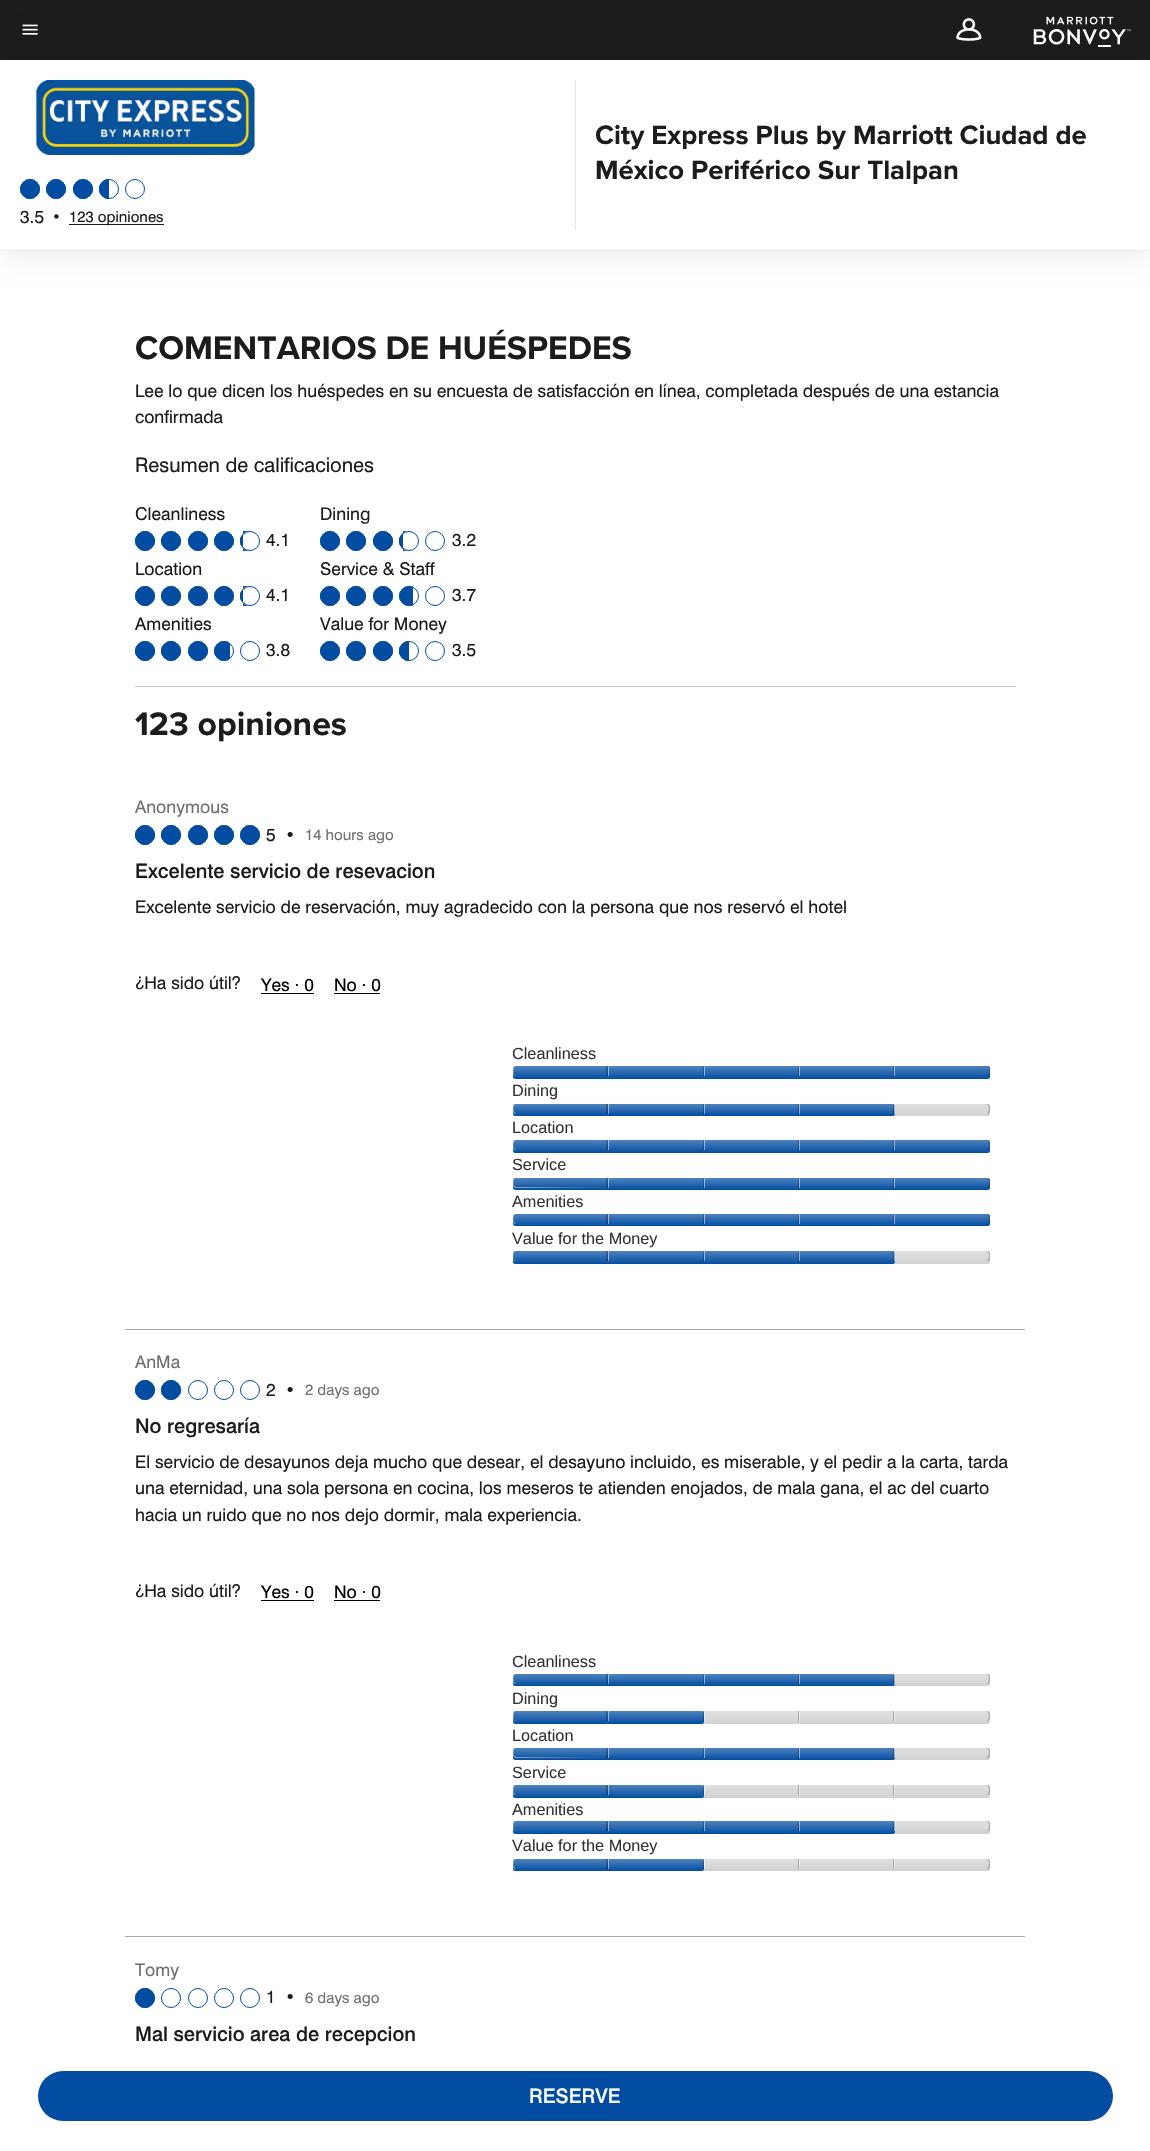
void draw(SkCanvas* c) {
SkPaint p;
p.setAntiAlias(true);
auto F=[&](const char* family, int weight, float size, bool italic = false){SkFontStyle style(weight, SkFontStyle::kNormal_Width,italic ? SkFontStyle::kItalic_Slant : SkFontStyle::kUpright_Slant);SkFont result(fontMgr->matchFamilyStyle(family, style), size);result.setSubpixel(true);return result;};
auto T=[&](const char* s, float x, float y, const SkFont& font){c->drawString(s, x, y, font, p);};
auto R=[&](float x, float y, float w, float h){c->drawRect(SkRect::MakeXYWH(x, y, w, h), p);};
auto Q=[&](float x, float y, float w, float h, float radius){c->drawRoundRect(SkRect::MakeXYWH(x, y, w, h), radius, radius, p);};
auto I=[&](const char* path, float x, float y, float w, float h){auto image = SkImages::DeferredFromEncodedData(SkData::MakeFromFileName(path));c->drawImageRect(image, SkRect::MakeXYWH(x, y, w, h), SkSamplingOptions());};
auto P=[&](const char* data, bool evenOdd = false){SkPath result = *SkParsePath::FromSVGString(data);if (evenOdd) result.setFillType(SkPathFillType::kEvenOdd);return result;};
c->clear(0xffffffff);
p.setColor(0xff1c1c1c);
R(0,0,1150,60);
p.setColor(0xff000000);
R(20,14,1,1);
I("1.png",22,24,16,11);
I("2.png",956,18,26,23);
p.setColor(0xfff4f4f4);
R(0,250,1150,1);
c->save();
c->clipPath(P("M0 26h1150v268h-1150zm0 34h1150v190h-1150z",true),true);
p.setColor(0x12000000);
p.setMaskFilter(SkMaskFilter::MakeBlur(kNormal_SkBlurStyle, 12.5));
c->drawRect(SkRect::MakeXYWH(0,65,1150,190),p);
p.setMaskFilter(nullptr);
c->restore();
I("3.png",1033,16,98,29);
p.setColor(0xffffffff);
R(1098,45,13,2);
auto f1 = F("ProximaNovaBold",700,27.5);
p.setColor(0xff1c1c1c);
T("City Express Plus by Marriott Ciudad de",595,144,f1);
T("México Periférico Sur Tlalpan",595,179,f1);
p.setColor(0xffe6e7e9);
R(575,80,1,150);
I("4.png",35,80,220,75);
p.setStroke(true);
p.setStrokeWidth(1);
p.setColor(0xff024da1);
c->drawCircle(30,189,9.5,p);
p.setStroke(false);
c->drawCircle(30,189,9.5,p);
p.setStroke(true);
c->drawCircle(30,189,9.5,p);
c->drawCircle(56,189,9.5,p);
p.setStroke(false);
c->drawCircle(56,189,9.5,p);
p.setStroke(true);
c->drawCircle(56,189,9.5,p);
c->drawCircle(83,189,9.5,p);
p.setStroke(false);
c->drawCircle(83,189,9.5,p);
p.setStroke(true);
c->drawCircle(83,189,9.5,p);
c->drawCircle(109,189,9.5,p);
p.setStroke(false);
c->drawPath(P("M109 179v20c-5.5 0-10-4.5-10-10c0-5.5 4.5-10 10-10z"),p);
c->save();
c->clipRect(SkRect::MakeXYWH(99,179,10,20));
p.setStroke(true);
c->drawCircle(109,189,9.5,p);
c->restore();
c->drawCircle(135,189,9.5,p);
auto f2 = F("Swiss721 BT",400,17.5);
p.setStroke(false);
p.setColor(0xff1c1c1c);
T("3.5",20,223,f2);
auto f3 = F("Swiss721 BT",400,15);
T("•",52,222,f3);
R(69,224,95,1);
T("123 opiniones",69,222,f3);
p.setColor(0xff024da1);
Q(38,2071,1075,50,25);
auto f4 = F("Swiss721 BT",500,20);
p.setColor(0xffffffff);
T("RESERVE",529,2103,f4);
auto f5 = F("ProximaNovaBold",700,33.75);
p.setColor(0xff1c1c1c);
T("COMENTARIOS DE HUÉSPEDES",135,359,f5);
T("Lee lo que dicen los huéspedes en su encuesta de satisfacción en línea, completada después de una estancia",135,397,f2);
T("confirmada",135,423,f2);
auto f6 = F("Swiss721 BT",400,20);
T("Resumen de calificaciones",135,472,f6);
T("Cleanliness",135,520,f2);
p.setStroke(true);
p.setColor(0xff024da1);
c->drawCircle(145,541,9.5,p);
p.setStroke(false);
c->drawCircle(145,541,9.5,p);
p.setStroke(true);
c->drawCircle(145,541,9.5,p);
c->drawCircle(171,541,9.5,p);
p.setStroke(false);
c->drawCircle(171,541,9.5,p);
p.setStroke(true);
c->drawCircle(171,541,9.5,p);
c->drawCircle(198,541,9.5,p);
p.setStroke(false);
c->drawCircle(198,541,9.5,p);
p.setStroke(true);
c->drawCircle(198,541,9.5,p);
c->drawCircle(224,541,9.5,p);
p.setStroke(false);
c->drawCircle(224,541,9.5,p);
p.setStroke(true);
c->drawCircle(224,541,9.5,p);
c->drawCircle(250,541,9.5,p);
p.setStroke(false);
c->drawPath(P("M250 531h-7v20h7c-5.5 0-10-4.5-10-10c0-5.5 4.5-10 10-10z"),p);
c->save();
c->clipRect(SkRect::MakeXYWH(240,531,3,20));
p.setStroke(true);
c->drawCircle(250,541,9.5,p);
c->restore();
p.setStroke(false);
p.setColor(0xff1c1c1c);
T("4.1",266,546,f2);
T("Location",135,575,f2);
p.setStroke(true);
p.setColor(0xff024da1);
c->drawCircle(145,596,9.5,p);
p.setStroke(false);
c->drawCircle(145,596,9.5,p);
p.setStroke(true);
c->drawCircle(145,596,9.5,p);
c->drawCircle(171,596,9.5,p);
p.setStroke(false);
c->drawCircle(171,596,9.5,p);
p.setStroke(true);
c->drawCircle(171,596,9.5,p);
c->drawCircle(198,596,9.5,p);
p.setStroke(false);
c->drawCircle(198,596,9.5,p);
p.setStroke(true);
c->drawCircle(198,596,9.5,p);
c->drawCircle(224,596,9.5,p);
p.setStroke(false);
c->drawCircle(224,596,9.5,p);
p.setStroke(true);
c->drawCircle(224,596,9.5,p);
c->drawCircle(250,596,9.5,p);
p.setStroke(false);
c->drawPath(P("M250 586h-7v20h7c-5.5 0-10-4.5-10-10c0-5.5 4.5-10 10-10z"),p);
c->save();
c->clipRect(SkRect::MakeXYWH(240,586,3,20));
p.setStroke(true);
c->drawCircle(250,596,9.5,p);
c->restore();
p.setStroke(false);
p.setColor(0xff1c1c1c);
T("4.1",266,601,f2);
T("Amenities",135,630,f2);
p.setStroke(true);
p.setColor(0xff024da1);
c->drawCircle(145,651,9.5,p);
p.setStroke(false);
c->drawCircle(145,651,9.5,p);
p.setStroke(true);
c->drawCircle(145,651,9.5,p);
c->drawCircle(171,651,9.5,p);
p.setStroke(false);
c->drawCircle(171,651,9.5,p);
p.setStroke(true);
c->drawCircle(171,651,9.5,p);
c->drawCircle(198,651,9.5,p);
p.setStroke(false);
c->drawCircle(198,651,9.5,p);
p.setStroke(true);
c->drawCircle(198,651,9.5,p);
c->drawCircle(224,651,9.5,p);
c->save();
c->clipRect(SkRect::MakeXYWH(214,641,16,20));
p.setStroke(false);
c->drawCircle(224,651,9.5,p);
p.setStroke(true);
c->drawCircle(224,651,9.5,p);
c->restore();
c->drawCircle(250,651,9.5,p);
p.setStroke(false);
p.setColor(0xff1c1c1c);
T("3.8",266,656,f2);
T("Dining",320,520,f2);
p.setStroke(true);
p.setColor(0xff024da1);
c->drawCircle(330,541,9.5,p);
p.setStroke(false);
c->drawCircle(330,541,9.5,p);
p.setStroke(true);
c->drawCircle(330,541,9.5,p);
c->drawCircle(356,541,9.5,p);
p.setStroke(false);
c->drawCircle(356,541,9.5,p);
p.setStroke(true);
c->drawCircle(356,541,9.5,p);
c->drawCircle(383,541,9.5,p);
p.setStroke(false);
c->drawCircle(383,541,9.5,p);
p.setStroke(true);
c->drawCircle(383,541,9.5,p);
c->drawCircle(409,541,9.5,p);
p.setStroke(false);
c->drawPath(P("M409 531h-6v20h6c-5.5 0-10-4.5-10-10c0-5.5 4.5-10 10-10z"),p);
c->save();
c->clipRect(SkRect::MakeXYWH(399,531,4,20));
p.setStroke(true);
c->drawCircle(409,541,9.5,p);
c->restore();
c->drawCircle(435,541,9.5,p);
p.setStroke(false);
p.setColor(0xff1c1c1c);
T("3.2",452,546,f2);
T("Service & Staff",320,575,f2);
p.setStroke(true);
p.setColor(0xff024da1);
c->drawCircle(330,596,9.5,p);
p.setStroke(false);
c->drawCircle(330,596,9.5,p);
p.setStroke(true);
c->drawCircle(330,596,9.5,p);
c->drawCircle(356,596,9.5,p);
p.setStroke(false);
c->drawCircle(356,596,9.5,p);
p.setStroke(true);
c->drawCircle(356,596,9.5,p);
c->drawCircle(383,596,9.5,p);
p.setStroke(false);
c->drawCircle(383,596,9.5,p);
p.setStroke(true);
c->drawCircle(383,596,9.5,p);
c->drawCircle(409,596,9.5,p);
c->save();
c->clipRect(SkRect::MakeXYWH(399,586,14,20));
p.setStroke(false);
c->drawCircle(409,596,9.5,p);
p.setStroke(true);
c->drawCircle(409,596,9.5,p);
c->restore();
c->drawCircle(435,596,9.5,p);
p.setStroke(false);
p.setColor(0xff1c1c1c);
T("3.7",452,601,f2);
T("Value for Money",320,630,f2);
p.setStroke(true);
p.setColor(0xff024da1);
c->drawCircle(330,651,9.5,p);
p.setStroke(false);
c->drawCircle(330,651,9.5,p);
p.setStroke(true);
c->drawCircle(330,651,9.5,p);
c->drawCircle(356,651,9.5,p);
p.setStroke(false);
c->drawCircle(356,651,9.5,p);
p.setStroke(true);
c->drawCircle(356,651,9.5,p);
c->drawCircle(383,651,9.5,p);
p.setStroke(false);
c->drawCircle(383,651,9.5,p);
p.setStroke(true);
c->drawCircle(383,651,9.5,p);
c->drawCircle(409,651,9.5,p);
p.setStroke(false);
c->drawPath(P("M409 641v20c-5.5 0-10-4.5-10-10c0-5.5 4.5-10 10-10z"),p);
c->save();
c->clipRect(SkRect::MakeXYWH(399,641,10,20));
p.setStroke(true);
c->drawCircle(409,651,9.5,p);
c->restore();
c->drawCircle(435,651,9.5,p);
p.setStroke(false);
p.setColor(0xff1c1c1c);
T("3.5",452,656,f2);
p.setColor(0xffc4c4c4);
R(135,686,880,1);
p.setColor(0xff1c1c1c);
T("123 opiniones",135,735,f5);
p.setColor(0xffa9a9a9);
R(125,1329,900,1);
p.setColor(0xff707070);
T("Anonymous",135,813,f2);
p.setStroke(true);
p.setColor(0xff024da1);
c->drawCircle(145,835,9.5,p);
p.setStroke(false);
c->drawCircle(145,835,9.5,p);
p.setStroke(true);
c->drawCircle(145,835,9.5,p);
c->drawCircle(171,835,9.5,p);
p.setStroke(false);
c->drawCircle(171,835,9.5,p);
p.setStroke(true);
c->drawCircle(171,835,9.5,p);
c->drawCircle(198,835,9.5,p);
p.setStroke(false);
c->drawCircle(198,835,9.5,p);
p.setStroke(true);
c->drawCircle(198,835,9.5,p);
c->drawCircle(224,835,9.5,p);
p.setStroke(false);
c->drawCircle(224,835,9.5,p);
p.setStroke(true);
c->drawCircle(224,835,9.5,p);
c->drawCircle(250,835,9.5,p);
p.setStroke(false);
c->drawCircle(250,835,9.5,p);
p.setStroke(true);
c->drawCircle(250,835,9.5,p);
p.setStroke(false);
p.setColor(0xff1c1c1c);
T("5",266,841,f2);
T("•",285,841,f2);
p.setColor(0xff707070);
T("14 hours ago",305,840,f3);
p.setColor(0xff1c1c1c);
T("Excelente servicio de resevacion",135,878,f4);
T("Excelente servicio de reservación, muy agradecido con la persona que nos reservó el hotel",135,913,f2);
T("¿Ha sido útil?",135,989,f2);
p.setColor(0xff000000);
T("Yes · 0",261,991,f2);
R(261,993,53,1);
T("No · 0",334,991,f2);
R(334,993,46,1);
auto f7 = F("Liberation Sans",400,16.25);
p.setColor(0xff333333);
T("Cleanliness",512,1059,f7);
p.setColor(0xff024da1);
Q(513,1066,477,13,2.5);
{
const SkColor colors[] = {0x4dffffff,0x00ffffff};
const float stops[] = {0,1};
const SkPoint ends[] = {{751,1066}, {751,1079}};
p.setShader(SkGradientShader::MakeLinear(ends, colors, stops, 2, SkTileMode::kClamp));
p.setAlpha(255);
}
Q(513,1066,477,13,2.5);
p.setShader(nullptr);
p.setColor(0x40000000);
R(606,1066,2,10);
p.setColor(0x80ffffff);
c->drawPath(P("M515.5 1066c-3 0-2.5 3-2.5 5c0 2.5 0 5 3 5l-2-1c-1-2-1-9 2-9z"),p);
p.setColor(0x40000000);
R(703,1066,1,10);
p.setColor(0x80ffffff);
R(608,1066,1,10);
p.setColor(0x40000000);
R(798,1066,1,10);
p.setColor(0x80ffffff);
R(704,1066,1,10);
p.setColor(0x40000000);
R(893,1066,1,10);
p.setColor(0x80ffffff);
R(799,1066,1,10);
p.setColor(0x40000000);
c->drawPath(P("M986 1076c4 0 4-1.5 4-5c0-3.5 0-5-4-5c4 0 4 10 0 10z"),p);
p.setColor(0x80ffffff);
R(894,1066,1,10);
p.setColor(0xff333333);
T("Dining",512,1096,f7);
p.setColor(0xffd2d2d2);
Q(513,1104,477,12,2.5);
{
const SkColor colors[] = {0x4dffffff,0x00ffffff};
const float stops[] = {0,1};
const SkPoint ends[] = {{751,1104}, {751,1116}};
p.setShader(SkGradientShader::MakeLinear(ends, colors, stops, 2, SkTileMode::kClamp));
p.setAlpha(255);
}
Q(513,1104,477,12,2.5);
p.setShader(nullptr);
p.setColor(0xff024da1);
Q(513,1104,382,12,2.5);
{
const SkColor colors[] = {0x4dffffff,0x00ffffff};
const float stops[] = {0,1};
const SkPoint ends[] = {{704,1104}, {704,1116}};
p.setShader(SkGradientShader::MakeLinear(ends, colors, stops, 2, SkTileMode::kClamp));
p.setAlpha(255);
}
Q(513,1104,382,12,2.5);
p.setShader(nullptr);
p.setColor(0x40000000);
R(606,1104,2,10);
p.setColor(0x80ffffff);
c->drawPath(P("M515.5 1104c-3 0-2.5 3-2.5 5c0 2.5 0 5 3 5l-2-2c-1-2-1-8 2-8z"),p);
p.setColor(0x40000000);
R(703,1104,1,10);
p.setColor(0x80ffffff);
R(608,1104,1,10);
p.setColor(0x40000000);
R(798,1104,1,10);
p.setColor(0x80ffffff);
R(704,1104,1,10);
p.setColor(0x40000000);
R(893,1104,1,10);
p.setColor(0x80ffffff);
R(799,1104,1,10);
p.setColor(0x40000000);
c->drawPath(P("M986 1114c4 0 4-1.5 4-5c0-3.5 0-5-4-5c4 0 4 10 0 10z"),p);
p.setColor(0x80ffffff);
R(894,1104,1,10);
p.setColor(0xff333333);
T("Location",512,1133,f7);
p.setColor(0xff024da1);
Q(513,1140,477,13,2.5);
{
const SkColor colors[] = {0x4dffffff,0x00ffffff};
const float stops[] = {0,1};
const SkPoint ends[] = {{751,1140}, {751,1153}};
p.setShader(SkGradientShader::MakeLinear(ends, colors, stops, 2, SkTileMode::kClamp));
p.setAlpha(255);
}
Q(513,1140,477,13,2.5);
p.setShader(nullptr);
p.setColor(0x40000000);
R(606,1140,2,10);
p.setColor(0x80ffffff);
c->drawPath(P("M515.5 1140c-3 0-2.5 3-2.5 5c0 2.5 0 5 3 5l-2-2c-1-1-1-8 2-8z"),p);
p.setColor(0x40000000);
R(703,1140,1,10);
p.setColor(0x80ffffff);
R(608,1140,1,10);
p.setColor(0x40000000);
R(798,1140,1,10);
p.setColor(0x80ffffff);
R(704,1140,1,10);
p.setColor(0x40000000);
R(893,1140,1,10);
p.setColor(0x80ffffff);
R(799,1140,1,10);
p.setColor(0x40000000);
c->drawPath(P("M986 1150c4 0 4-1.5 4-5c0-3.5 0-5-4-5c4 0 4 10 0 10z"),p);
p.setColor(0x80ffffff);
R(894,1140,1,10);
p.setColor(0xff333333);
T("Service",512,1170,f7);
p.setColor(0xff024da1);
Q(513,1178,477,12,2.5);
{
const SkColor colors[] = {0x4dffffff,0x00ffffff};
const float stops[] = {0,1};
const SkPoint ends[] = {{751,1178}, {751,1190}};
p.setShader(SkGradientShader::MakeLinear(ends, colors, stops, 2, SkTileMode::kClamp));
p.setAlpha(255);
}
Q(513,1178,477,12,2.5);
p.setShader(nullptr);
p.setColor(0x40000000);
c->drawPath(P("M514 1187l1 1h93v-10h-2v10z"),p);
p.setColor(0x80ffffff);
c->drawPath(P("M516 1178c-4 0-4 7-3 8l2 2h93l-92-1l-2-1c-1-2-1-8 2-8z"),p);
p.setColor(0x40000000);
R(703,1178,1,10);
p.setColor(0x80ffffff);
R(608,1178,1,10);
p.setColor(0x40000000);
R(798,1178,1,10);
p.setColor(0x80ffffff);
R(704,1178,1,10);
p.setColor(0x40000000);
R(893,1178,1,10);
p.setColor(0x80ffffff);
R(799,1178,1,10);
p.setColor(0x40000000);
c->drawPath(P("M986 1188c4 0 4-1.5 4-5c0-3.5 0-5-4-5c4 0 4 9 0 10z"),p);
p.setColor(0x80ffffff);
R(894,1178,1,10);
p.setColor(0xff333333);
T("Amenities",512,1207,f7);
p.setColor(0xff024da1);
Q(513,1214,477,12,2.5);
{
const SkColor colors[] = {0x4dffffff,0x00ffffff};
const float stops[] = {0,1};
const SkPoint ends[] = {{751,1214}, {751,1226}};
p.setShader(SkGradientShader::MakeLinear(ends, colors, stops, 2, SkTileMode::kClamp));
p.setAlpha(255);
}
Q(513,1214,477,12,2.5);
p.setShader(nullptr);
p.setColor(0x40000000);
R(606,1214,2,10);
p.setColor(0x80ffffff);
c->drawPath(P("M515.5 1214c-3 0-2.5 3-2.5 5c0 2.5 0 5 3 5l-2-2c-1-2-1-8 2-8z"),p);
p.setColor(0x40000000);
R(703,1214,1,10);
p.setColor(0x80ffffff);
R(608,1214,1,10);
p.setColor(0x40000000);
R(798,1214,1,10);
p.setColor(0x80ffffff);
R(704,1214,1,10);
p.setColor(0x40000000);
R(893,1214,1,10);
p.setColor(0x80ffffff);
R(799,1214,1,10);
p.setColor(0x40000000);
c->drawPath(P("M986 1224c4 0 4-1.5 4-5c0-3.5 0-5-4-5c4 0 4 10 0 10z"),p);
p.setColor(0x80ffffff);
R(894,1214,1,10);
p.setColor(0xff333333);
T("Value for the Money",512,1244,f7);
p.setColor(0xffd2d2d2);
Q(513,1251,477,13,2.5);
{
const SkColor colors[] = {0x4dffffff,0x00ffffff};
const float stops[] = {0,1};
const SkPoint ends[] = {{751,1251}, {751,1264}};
p.setShader(SkGradientShader::MakeLinear(ends, colors, stops, 2, SkTileMode::kClamp));
p.setAlpha(255);
}
Q(513,1251,477,13,2.5);
p.setShader(nullptr);
p.setColor(0xff024da1);
Q(513,1251,382,13,2.5);
{
const SkColor colors[] = {0x4dffffff,0x00ffffff};
const float stops[] = {0,1};
const SkPoint ends[] = {{704,1251}, {704,1264}};
p.setShader(SkGradientShader::MakeLinear(ends, colors, stops, 2, SkTileMode::kClamp));
p.setAlpha(255);
}
Q(513,1251,382,13,2.5);
p.setShader(nullptr);
p.setColor(0x40000000);
R(606,1251,2,10);
p.setColor(0x80ffffff);
c->drawPath(P("M515.5 1251c-3 0-2.5 3-2.5 5c0 2.5 0 5 3 5l-2-1c-1-2-1-9 2-9z"),p);
p.setColor(0x40000000);
R(703,1251,1,10);
p.setColor(0x80ffffff);
R(608,1251,1,10);
p.setColor(0x40000000);
R(798,1251,1,10);
p.setColor(0x80ffffff);
R(704,1251,1,10);
p.setColor(0x40000000);
R(893,1251,1,10);
p.setColor(0x80ffffff);
R(799,1251,1,10);
p.setColor(0x40000000);
c->drawPath(P("M986 1261c4 0 4-1.5 4-5c0-3.5 0-5-4-5c4 0 4 10 0 10z"),p);
p.setColor(0x80ffffff);
R(894,1251,1,10);
p.setColor(0xffa9a9a9);
R(125,1936,900,1);
p.setColor(0xff707070);
T("AnMa",135,1368,f2);
p.setStroke(true);
p.setColor(0xff024da1);
c->drawCircle(145,1390,9.5,p);
p.setStroke(false);
c->drawCircle(145,1390,9.5,p);
p.setStroke(true);
c->drawCircle(145,1390,9.5,p);
c->drawCircle(171,1390,9.5,p);
p.setStroke(false);
c->drawCircle(171,1390,9.5,p);
p.setStroke(true);
c->drawCircle(171,1390,9.5,p);
c->drawCircle(198,1390,9.5,p);
c->drawCircle(224,1390,9.5,p);
c->drawCircle(250,1390,9.5,p);
p.setStroke(false);
p.setColor(0xff1c1c1c);
T("2",266,1396,f2);
T("•",285,1396,f2);
p.setColor(0xff707070);
T("2 days ago",305,1395,f3);
p.setColor(0xff1c1c1c);
T("No regresaría",135,1433,f4);
T("El servicio de desayunos deja mucho que desear, el desayuno incluido, es miserable, y el pedir a la carta, tarda",135,1468,f2);
T("una eternidad, una sola persona en cocina, los meseros te atienden enojados, de mala gana, el ac del cuarto",135,1494,f2);
T("hacia un ruido que no nos dejo dormir, mala experiencia.",135,1521,f2);
T("¿Ha sido útil?",135,1597,f2);
p.setColor(0xff000000);
T("Yes · 0",261,1598,f2);
R(261,1600,53,1);
T("No · 0",334,1598,f2);
R(334,1600,46,1);
p.setColor(0xff333333);
T("Cleanliness",512,1667,f7);
p.setColor(0xffd2d2d2);
Q(513,1674,477,12,2.5);
{
const SkColor colors[] = {0x4dffffff,0x00ffffff};
const float stops[] = {0,1};
const SkPoint ends[] = {{751,1674}, {751,1686}};
p.setShader(SkGradientShader::MakeLinear(ends, colors, stops, 2, SkTileMode::kClamp));
p.setAlpha(255);
}
Q(513,1674,477,12,2.5);
p.setShader(nullptr);
p.setColor(0xff024da1);
Q(513,1674,382,12,2.5);
{
const SkColor colors[] = {0x4dffffff,0x00ffffff};
const float stops[] = {0,1};
const SkPoint ends[] = {{704,1674}, {704,1686}};
p.setShader(SkGradientShader::MakeLinear(ends, colors, stops, 2, SkTileMode::kClamp));
p.setAlpha(255);
}
Q(513,1674,382,12,2.5);
p.setShader(nullptr);
p.setColor(0x40000000);
R(606,1674,2,10);
p.setColor(0x80ffffff);
c->drawPath(P("M515.5 1674c-3 0-2.5 3-2.5 5c0 2.5 0 5 3 5l-2-2c-1-2-1-8 2-8z"),p);
p.setColor(0x40000000);
R(703,1674,1,10);
p.setColor(0x80ffffff);
R(608,1674,1,10);
p.setColor(0x40000000);
R(798,1674,1,10);
p.setColor(0x80ffffff);
R(704,1674,1,10);
p.setColor(0x40000000);
R(893,1674,1,10);
p.setColor(0x80ffffff);
R(799,1674,1,10);
p.setColor(0x40000000);
c->drawPath(P("M986 1684c4 0 4-1.5 4-5c0-3.5 0-5-4-5c4 0 4 10 0 10z"),p);
p.setColor(0x80ffffff);
R(894,1674,1,10);
p.setColor(0xff333333);
T("Dining",512,1704,f7);
p.setColor(0xffd2d2d2);
Q(513,1711,477,13,2.5);
{
const SkColor colors[] = {0x4dffffff,0x00ffffff};
const float stops[] = {0,1};
const SkPoint ends[] = {{751,1711}, {751,1724}};
p.setShader(SkGradientShader::MakeLinear(ends, colors, stops, 2, SkTileMode::kClamp));
p.setAlpha(255);
}
Q(513,1711,477,13,2.5);
p.setShader(nullptr);
p.setColor(0xff024da1);
Q(513,1711,191,13,2.5);
{
const SkColor colors[] = {0x4dffffff,0x00ffffff};
const float stops[] = {0,1};
const SkPoint ends[] = {{608,1711}, {608,1724}};
p.setShader(SkGradientShader::MakeLinear(ends, colors, stops, 2, SkTileMode::kClamp));
p.setAlpha(255);
}
Q(513,1711,191,13,2.5);
p.setShader(nullptr);
p.setColor(0x40000000);
R(606,1711,2,10);
p.setColor(0x80ffffff);
c->drawPath(P("M515.5 1711c-3 0-2.5 3-2.5 5c0 2.5 0 5 3 5l-2-1c-1-2-1-9 2-9z"),p);
p.setColor(0x40000000);
R(703,1711,1,10);
p.setColor(0x80ffffff);
R(608,1711,1,10);
p.setColor(0x40000000);
R(798,1711,1,10);
p.setColor(0x80ffffff);
R(704,1711,1,10);
p.setColor(0x40000000);
R(893,1711,1,10);
p.setColor(0x80ffffff);
R(799,1711,1,10);
p.setColor(0x40000000);
c->drawPath(P("M986 1721c4 0 4-1.5 4-5c0-3.5 0-5-4-5c4 0 4 10 0 10z"),p);
p.setColor(0x80ffffff);
R(894,1711,1,10);
p.setColor(0xff333333);
T("Location",512,1741,f7);
p.setColor(0xffd2d2d2);
Q(513,1748,477,12,2.5);
{
const SkColor colors[] = {0x4dffffff,0x00ffffff};
const float stops[] = {0,1};
const SkPoint ends[] = {{751,1748}, {751,1760}};
p.setShader(SkGradientShader::MakeLinear(ends, colors, stops, 2, SkTileMode::kClamp));
p.setAlpha(255);
}
Q(513,1748,477,12,2.5);
p.setShader(nullptr);
p.setColor(0xff024da1);
Q(513,1748,382,12,2.5);
{
const SkColor colors[] = {0x4dffffff,0x00ffffff};
const float stops[] = {0,1};
const SkPoint ends[] = {{704,1748}, {704,1760}};
p.setShader(SkGradientShader::MakeLinear(ends, colors, stops, 2, SkTileMode::kClamp));
p.setAlpha(255);
}
Q(513,1748,382,12,2.5);
p.setShader(nullptr);
p.setColor(0x40000000);
c->drawPath(P("M514 1757l1 1h93v-10h-2v10z"),p);
p.setColor(0x80ffffff);
c->drawPath(P("M516 1748c-4 0-4 7-3 8l2 2h93l-92-1l-2-1c-1-2-1-8 2-8z"),p);
p.setColor(0x40000000);
R(703,1748,1,10);
p.setColor(0x80ffffff);
R(608,1748,1,10);
p.setColor(0x40000000);
R(798,1748,1,10);
p.setColor(0x80ffffff);
R(704,1748,1,10);
p.setColor(0x40000000);
R(893,1748,1,10);
p.setColor(0x80ffffff);
R(799,1748,1,10);
p.setColor(0x40000000);
c->drawPath(P("M986 1758c4 0 4-1.5 4-5c0-3.5 0-5-4-5c4 0 4 9 0 10z"),p);
p.setColor(0x80ffffff);
R(894,1748,1,10);
p.setColor(0xff333333);
T("Service",512,1778,f7);
p.setColor(0xffd2d2d2);
Q(513,1785,477,13,2.5);
{
const SkColor colors[] = {0x4dffffff,0x00ffffff};
const float stops[] = {0,1};
const SkPoint ends[] = {{751,1785}, {751,1798}};
p.setShader(SkGradientShader::MakeLinear(ends, colors, stops, 2, SkTileMode::kClamp));
p.setAlpha(255);
}
Q(513,1785,477,13,2.5);
p.setShader(nullptr);
p.setColor(0xff024da1);
Q(513,1785,191,13,2.5);
{
const SkColor colors[] = {0x4dffffff,0x00ffffff};
const float stops[] = {0,1};
const SkPoint ends[] = {{608,1785}, {608,1798}};
p.setShader(SkGradientShader::MakeLinear(ends, colors, stops, 2, SkTileMode::kClamp));
p.setAlpha(255);
}
Q(513,1785,191,13,2.5);
p.setShader(nullptr);
p.setColor(0x40000000);
R(606,1785,2,10);
p.setColor(0x80ffffff);
c->drawPath(P("M515.5 1785c-3 0-2.5 3-2.5 5c0 2.5 0 5 3 5l-2-2c-1-1-1-8 2-8z"),p);
p.setColor(0x40000000);
R(703,1785,1,10);
p.setColor(0x80ffffff);
R(608,1785,1,10);
p.setColor(0x40000000);
R(798,1785,1,10);
p.setColor(0x80ffffff);
R(704,1785,1,10);
p.setColor(0x40000000);
R(893,1785,1,10);
p.setColor(0x80ffffff);
R(799,1785,1,10);
p.setColor(0x40000000);
c->drawPath(P("M986 1795c4 0 4-1.5 4-5c0-3.5 0-5-4-5c4 0 4 10 0 10z"),p);
p.setColor(0x80ffffff);
R(894,1785,1,10);
p.setColor(0xff333333);
T("Amenities",512,1815,f7);
p.setColor(0xffd2d2d2);
Q(513,1821,477,13,2.5);
{
const SkColor colors[] = {0x4dffffff,0x00ffffff};
const float stops[] = {0,1};
const SkPoint ends[] = {{751,1821}, {751,1834}};
p.setShader(SkGradientShader::MakeLinear(ends, colors, stops, 2, SkTileMode::kClamp));
p.setAlpha(255);
}
Q(513,1821,477,13,2.5);
p.setShader(nullptr);
p.setColor(0xff024da1);
Q(513,1821,382,13,2.5);
{
const SkColor colors[] = {0x4dffffff,0x00ffffff};
const float stops[] = {0,1};
const SkPoint ends[] = {{704,1821}, {704,1834}};
p.setShader(SkGradientShader::MakeLinear(ends, colors, stops, 2, SkTileMode::kClamp));
p.setAlpha(255);
}
Q(513,1821,382,13,2.5);
p.setShader(nullptr);
p.setColor(0x40000000);
R(606,1821,2,10);
p.setColor(0x80ffffff);
c->drawPath(P("M515.5 1821c-3 0-2.5 3-2.5 5c0 2.5 0 5 3 5l-2-1c-1-2-1-9 2-9z"),p);
p.setColor(0x40000000);
R(703,1821,1,10);
p.setColor(0x80ffffff);
R(608,1821,1,10);
p.setColor(0x40000000);
R(798,1821,1,10);
p.setColor(0x80ffffff);
R(704,1821,1,10);
p.setColor(0x40000000);
R(893,1821,1,10);
p.setColor(0x80ffffff);
R(799,1821,1,10);
p.setColor(0x40000000);
c->drawPath(P("M986 1831c4 0 4-1.5 4-5c0-3.5 0-5-4-5c4 0 4 10 0 10z"),p);
p.setColor(0x80ffffff);
R(894,1821,1,10);
p.setColor(0xff333333);
T("Value for the Money",512,1851,f7);
p.setColor(0xffd2d2d2);
Q(513,1859,477,12,2.5);
{
const SkColor colors[] = {0x4dffffff,0x00ffffff};
const float stops[] = {0,1};
const SkPoint ends[] = {{751,1859}, {751,1871}};
p.setShader(SkGradientShader::MakeLinear(ends, colors, stops, 2, SkTileMode::kClamp));
p.setAlpha(255);
}
Q(513,1859,477,12,2.5);
p.setShader(nullptr);
p.setColor(0xff024da1);
Q(513,1859,191,12,2.5);
{
const SkColor colors[] = {0x4dffffff,0x00ffffff};
const float stops[] = {0,1};
const SkPoint ends[] = {{608,1859}, {608,1871}};
p.setShader(SkGradientShader::MakeLinear(ends, colors, stops, 2, SkTileMode::kClamp));
p.setAlpha(255);
}
Q(513,1859,191,12,2.5);
p.setShader(nullptr);
p.setColor(0x40000000);
R(606,1859,2,10);
p.setColor(0x80ffffff);
c->drawPath(P("M515.5 1859c-3 0-2.5 3-2.5 5c0 2.5 0 5 3 5l-2-2c-1-2-1-8 2-8z"),p);
p.setColor(0x40000000);
R(703,1859,1,10);
p.setColor(0x80ffffff);
R(608,1859,1,10);
p.setColor(0x40000000);
R(798,1859,1,10);
p.setColor(0x80ffffff);
R(704,1859,1,10);
p.setColor(0x40000000);
R(893,1859,1,10);
p.setColor(0x80ffffff);
R(799,1859,1,10);
p.setColor(0x40000000);
c->drawPath(P("M986 1869c4 0 4-1.5 4-5c0-3.5 0-5-4-5c4 0 4 10 0 10z"),p);
p.setColor(0x80ffffff);
R(894,1859,1,10);
p.setColor(0xff707070);
T("Tomy",135,1976,f2);
p.setStroke(true);
p.setColor(0xff024da1);
c->drawCircle(145,1998,9.5,p);
p.setStroke(false);
c->drawCircle(145,1998,9.5,p);
p.setStroke(true);
c->drawCircle(145,1998,9.5,p);
c->drawCircle(171,1998,9.5,p);
c->drawCircle(198,1998,9.5,p);
c->drawCircle(224,1998,9.5,p);
c->drawCircle(250,1998,9.5,p);
p.setStroke(false);
p.setColor(0xff1c1c1c);
T("1",266,2003,f2);
T("•",285,2003,f2);
p.setColor(0xff707070);
T("6 days ago",305,2003,f3);
p.setColor(0xff1c1c1c);
T("Mal servicio area de recepcion",135,2041,f4);
}
